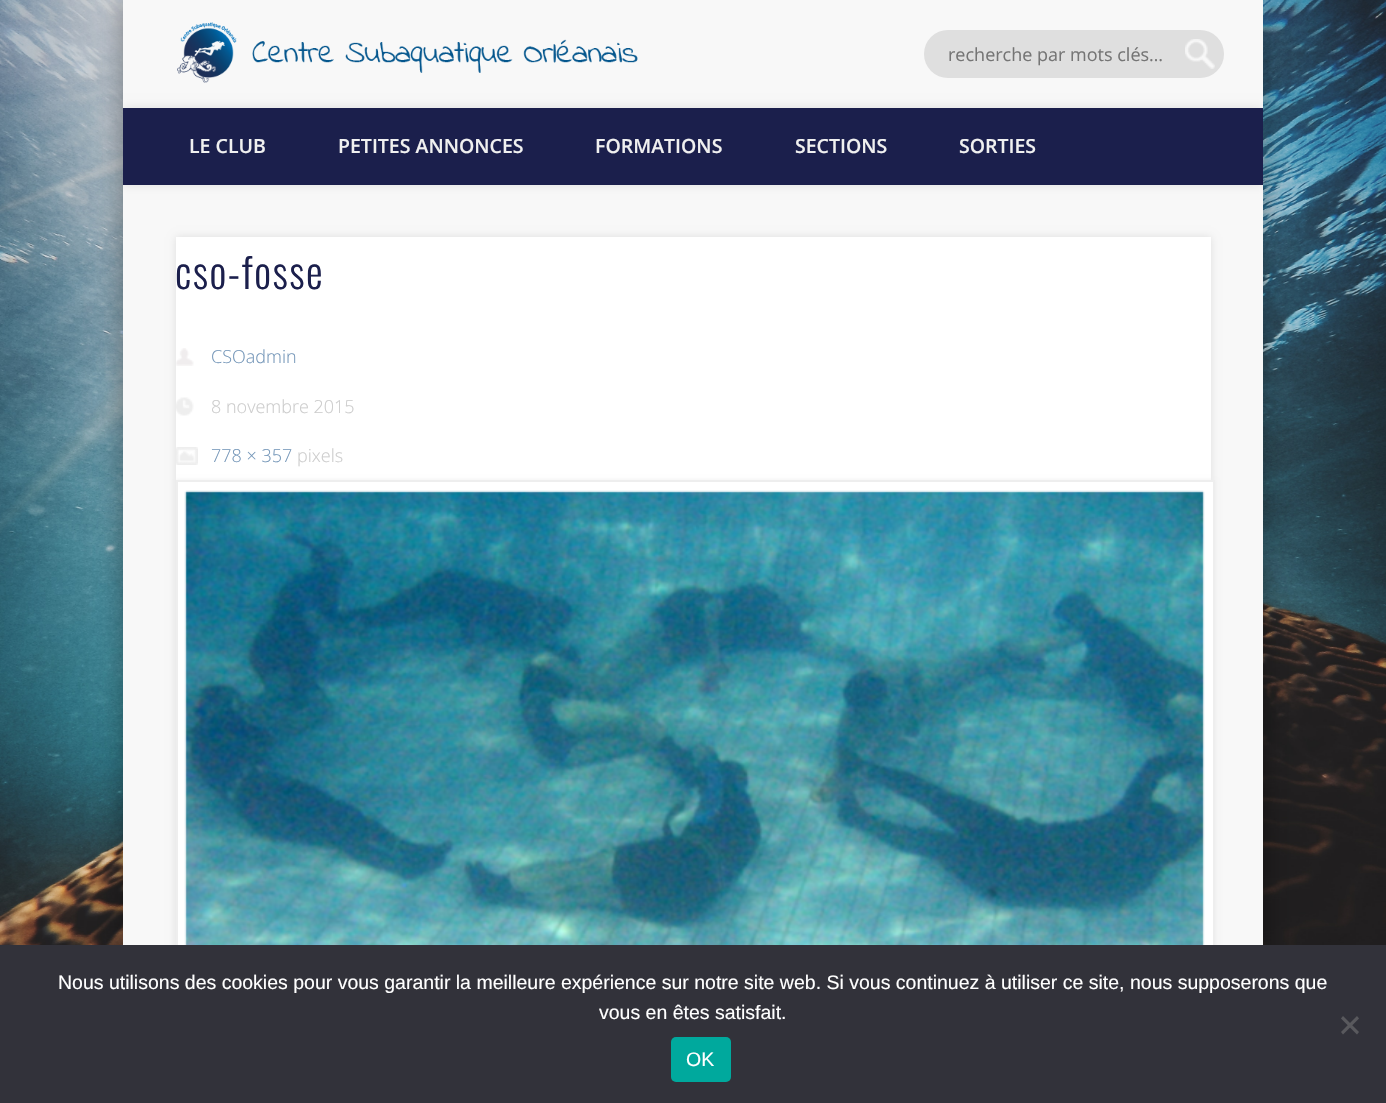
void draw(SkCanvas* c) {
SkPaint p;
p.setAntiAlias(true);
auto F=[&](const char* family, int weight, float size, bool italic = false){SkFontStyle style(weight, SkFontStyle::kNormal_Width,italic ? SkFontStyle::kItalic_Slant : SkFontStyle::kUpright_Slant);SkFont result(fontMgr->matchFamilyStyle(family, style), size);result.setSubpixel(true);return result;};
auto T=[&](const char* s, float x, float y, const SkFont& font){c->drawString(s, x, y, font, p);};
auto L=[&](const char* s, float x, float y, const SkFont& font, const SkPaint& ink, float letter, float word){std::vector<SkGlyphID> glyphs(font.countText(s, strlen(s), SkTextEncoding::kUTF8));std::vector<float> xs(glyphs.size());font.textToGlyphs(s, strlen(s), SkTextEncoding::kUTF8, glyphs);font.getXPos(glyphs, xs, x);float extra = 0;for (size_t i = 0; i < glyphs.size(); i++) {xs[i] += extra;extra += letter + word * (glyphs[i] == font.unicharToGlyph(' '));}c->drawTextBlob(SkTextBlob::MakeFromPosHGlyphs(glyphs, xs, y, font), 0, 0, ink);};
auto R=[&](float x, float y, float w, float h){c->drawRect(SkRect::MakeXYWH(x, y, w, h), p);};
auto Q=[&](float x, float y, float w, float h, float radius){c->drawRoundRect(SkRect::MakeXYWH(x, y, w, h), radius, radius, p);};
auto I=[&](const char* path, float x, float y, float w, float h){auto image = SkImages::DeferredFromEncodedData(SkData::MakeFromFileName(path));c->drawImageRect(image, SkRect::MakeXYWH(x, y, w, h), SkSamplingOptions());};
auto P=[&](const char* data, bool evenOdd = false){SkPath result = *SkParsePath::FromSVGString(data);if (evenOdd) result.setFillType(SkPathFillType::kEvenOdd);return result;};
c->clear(0xffffffff);
I("1.png",0,0,1386,945);
p.setColor(0x66000000);
p.setMaskFilter(SkMaskFilter::MakeBlur(kNormal_SkBlurStyle, 13.5));
c->drawRect(SkRect::MakeXYWH(123,0,1140,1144),p);
p.setMaskFilter(nullptr);
p.setColor(0xfff8f8f8);
R(123,0,1140,945);
I("2.png",177,22,461,61);
p.setColor(0xffdfdfdf);
Q(924,30,300,48,24);
I("3.png",1185,39,30,30);
auto f1 = F("Open Sans",400,18);
p.setColor(0xff757575);
T("recherche par mots clés…",948,61,f1);
c->save();
c->clipRect(SkRect::MakeXYWH(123,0,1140,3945));
p.setColor(0x1a000000);
p.setMaskFilter(SkMaskFilter::MakeBlur(kNormal_SkBlurStyle, 5));
c->drawRect(SkRect::MakeXYWH(123,108,1140,77),p);
p.setMaskFilter(nullptr);
c->restore();
p.setColor(0xff1b1f4c);
R(123,108,1140,77);
auto f2 = F("Open Sans",600,19.5);
p.setColor(0xfff0f0f0);
T("LE CLUB",189,153,f2);
T("PETITES ANNONCES",338,153,f2);
T("FORMATIONS",595,153,f2);
T("SECTIONS",795,153,f2);
T("SORTIES",959,153,f2);
p.setColor(0x1a000000);
p.setMaskFilter(SkMaskFilter::MakeBlur(kNormal_SkBlurStyle, 4));
c->drawRect(SkRect::MakeXYWH(176,237,1035,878),p);
p.setMaskFilter(nullptr);
p.setColor(0xffffffff);
R(176,237,1035,243);
auto f3 = F("Oswald",300,42);
p.setColor(0xff1b1f4c);
L("cso-fosse",175,289,f3,p,1.5,0);
I("4.png",176,348,18,18);
auto f4 = F("Open Sans",300,18);
p.setColor(0xff7597b9);
T("CSOadmin",211,363,f4);
I("5.png",176,397,18,19);
p.setColor(0xffcccccc);
T("8 novembre 2015",211,413,f4);
I("6.png",176,447,22,18);
p.setColor(0xff7597b9);
T("778 × 357",211,462,f4);
p.setColor(0xffcccccc);
T("pixels",297,462,f4);
p.setColor(0xffeeeeee);
p.setMaskFilter(SkMaskFilter::MakeBlur(kNormal_SkBlurStyle, 2));
c->drawRect(SkRect::MakeXYWH(176,480,1039,488),p);
p.setMaskFilter(nullptr);
p.setColor(0xffffffff);
R(178,482,1035,463);
p.setStroke(true);
p.setStrokeWidth(2);
p.setColor(0xffeeeeee);
c->drawRect(SkRect::MakeXYWH(177,481,1037,486),p);
I("7.png",184,490,1021,455);
p.setStroke(false);
p.setColor(0xff32323a);
R(0,945,1386,158);
auto f5 = F("Liberation Sans",400,19.5);
p.setColor(0xffffffff);
T("Nous utilisons des cookies pour vous garantir la meilleure expérience sur notre site web. Si vous continuez à utiliser ce site, nous supposerons que",58,989,f5);
T("vous en êtes satisfait.",599,1019,f5);
p.setColor(0xff59595d);
c->drawPath(P("M1357 1016l2 2.5l-16 16l-2-2.5z"),p);
c->drawPath(P("M1341 1018.5l2-2.5l16 16l-2 2.5z"),p);
p.setColor(0xff00a99d);
Q(671,1037,60,45,5);
p.setColor(0xffffffff);
T("OK",686,1066,f5);
}
